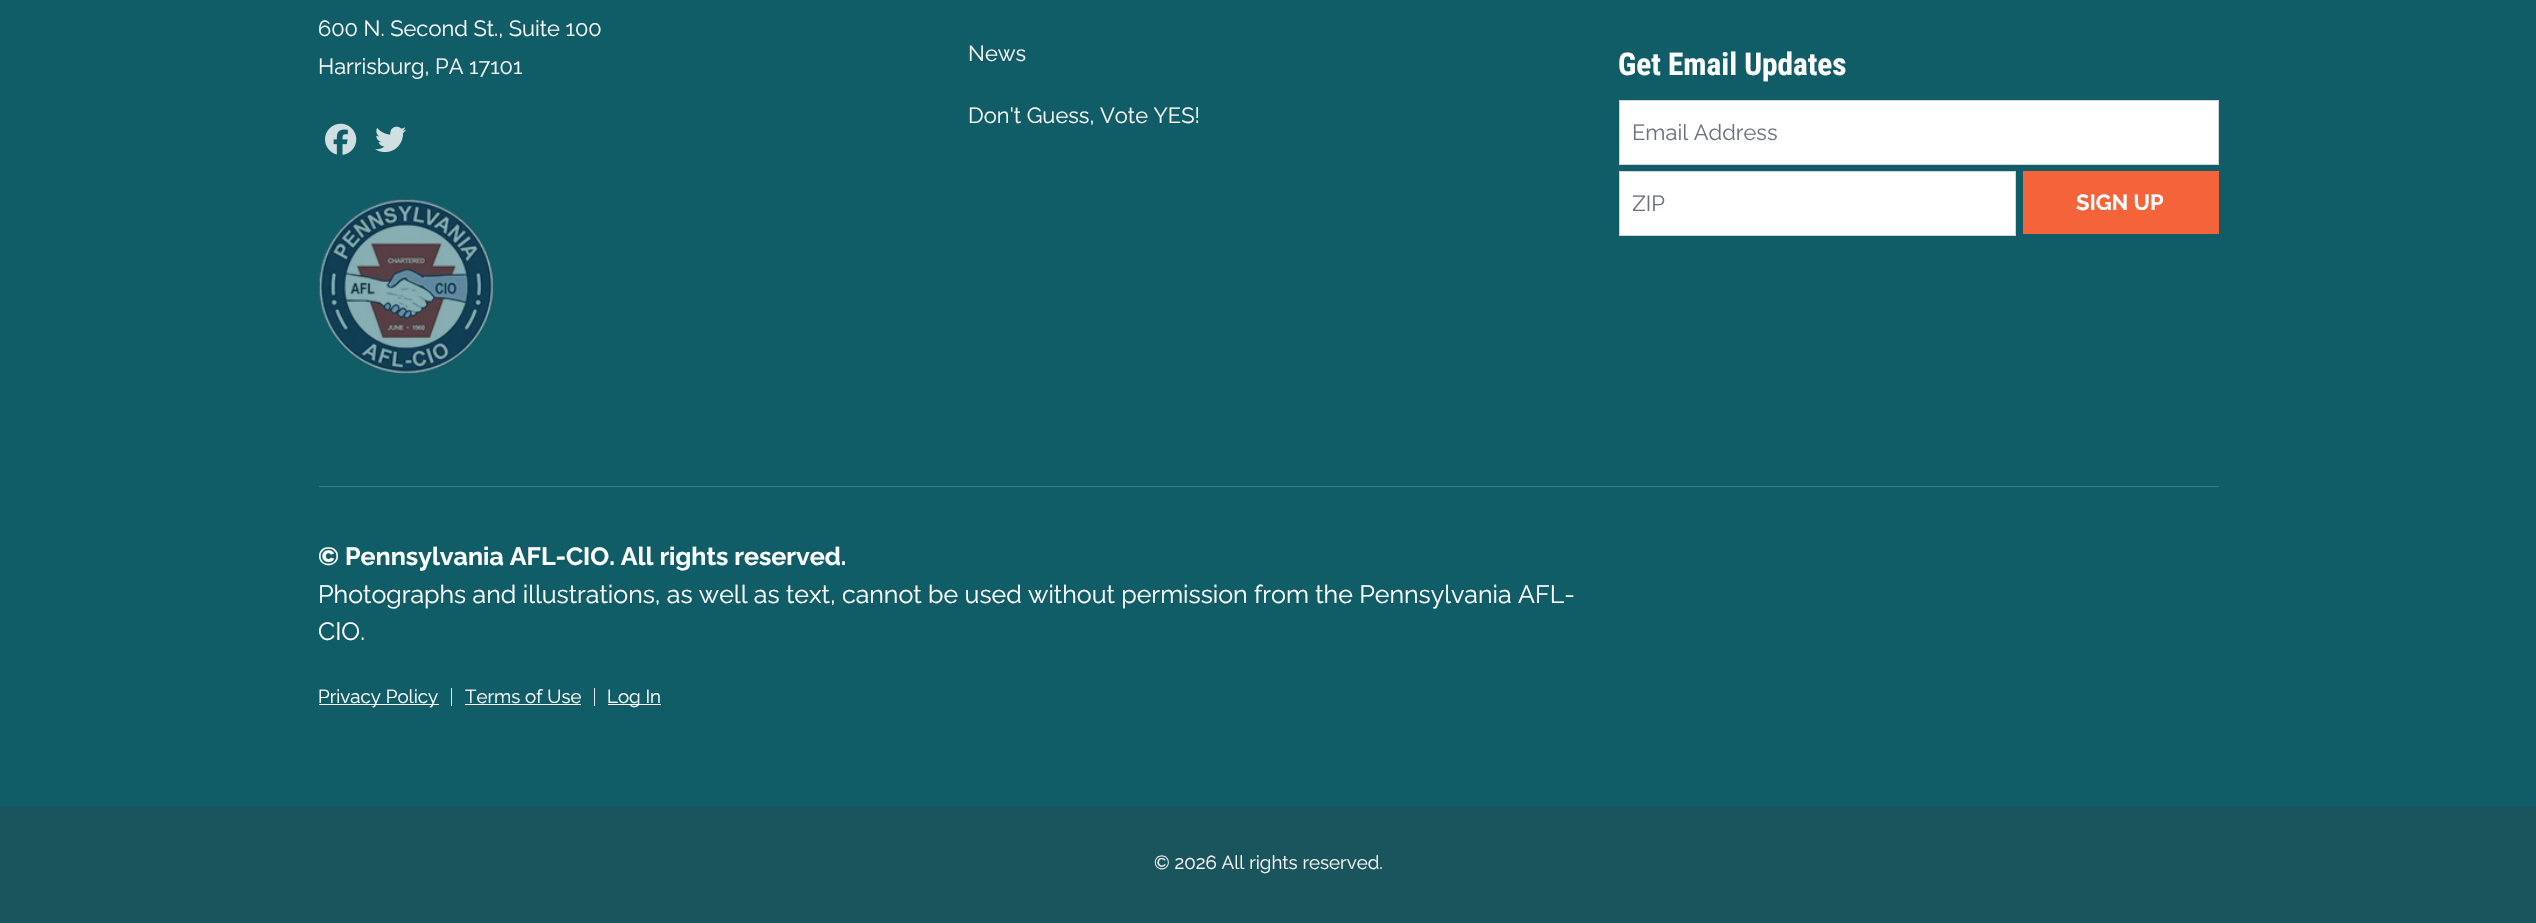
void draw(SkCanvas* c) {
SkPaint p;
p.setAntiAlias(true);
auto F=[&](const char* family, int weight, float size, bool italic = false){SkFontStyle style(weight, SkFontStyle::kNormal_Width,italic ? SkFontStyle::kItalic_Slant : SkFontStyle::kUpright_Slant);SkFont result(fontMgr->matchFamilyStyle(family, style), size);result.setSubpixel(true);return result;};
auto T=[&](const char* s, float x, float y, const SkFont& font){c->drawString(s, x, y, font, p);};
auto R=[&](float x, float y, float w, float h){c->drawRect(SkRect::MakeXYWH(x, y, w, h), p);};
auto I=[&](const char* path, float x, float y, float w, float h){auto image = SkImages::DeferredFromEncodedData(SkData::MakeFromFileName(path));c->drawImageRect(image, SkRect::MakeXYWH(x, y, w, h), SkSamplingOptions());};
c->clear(0xff105d67);
auto f1 = F("Raleway",400,21.9);
p.setColor(0xfff7f7f7);
T("600 N. Second St., Suite 100",318,36,f1);
T("Harrisburg, PA 17101",318,74,f1);
I("1.png",325,123,32,32);
I("2.png",375,126,32,27);
I("3.png",318,199,176,175);
T("News",968,61,f1);
T("Don't Guess, Vote YES!",968,123,f1);
auto f2 = F("Roboto Condensed",700,31.25);
p.setColor(0xffffffff);
T("Get Email Updates",1618,75,f2);
c->drawRect(SkRect::MakeXYWH(1619.5,100.5,599,64),p);
p.setStroke(true);
p.setStrokeWidth(1);
p.setColor(0xffd1d5db);
c->drawRect(SkRect::MakeXYWH(1619.5,100.5,599,64),p);
p.setStroke(false);
p.setColor(0xff6b7280);
T("Email Address",1632,140,f1);
p.setColor(0xffffffff);
c->drawRect(SkRect::MakeXYWH(1619.5,171.5,396,64),p);
p.setStroke(true);
p.setColor(0xffd1d5db);
c->drawRect(SkRect::MakeXYWH(1619.5,171.5,396,64),p);
c->save();
c->clipRect(SkRect::MakeXYWH(1633,191,370,25));
p.setStroke(false);
p.setColor(0xff6b7280);
T("ZIP",1632,211,f1);
c->restore();
p.setColor(0xfff4633a);
R(2023,171,196,63);
auto f3 = F("Raleway",700,21.9);
p.setColor(0xffffffff);
T("SIGN UP",2076,210,f3);
p.setColor(0xff3e7c84);
R(319,486,1900,1);
auto f4 = F("Raleway",700,25);
p.setColor(0xffffffff);
T("© Pennsylvania AFL-CIO. All rights reserved.",318,565,f4);
auto f5 = F("Raleway",400,25);
T("Photographs and illustrations, as well as text, cannot be used without permission from the Pennsylvania AFL-",318,603,f5);
T("CIO.",318,640,f5);
R(319,704,120,1);
auto f6 = F("Raleway",400,18.75);
T("Privacy Policy",318,703,f6);
p.setColor(0xffe5e7eb);
R(451,688,1,18);
p.setColor(0xffffffff);
T("Terms of Use",465,703,f6);
R(465,704,116,1);
p.setColor(0xffe5e7eb);
R(594,688,1,18);
p.setColor(0xffffffff);
R(608,704,53,1);
T("Log In",607,703,f6);
p.setColor(0xff1a545c);
R(0,806,2536,117);
p.setColor(0xfff7f7f7);
T("© 2026 All rights reserved.",1154,869,f6);
}
